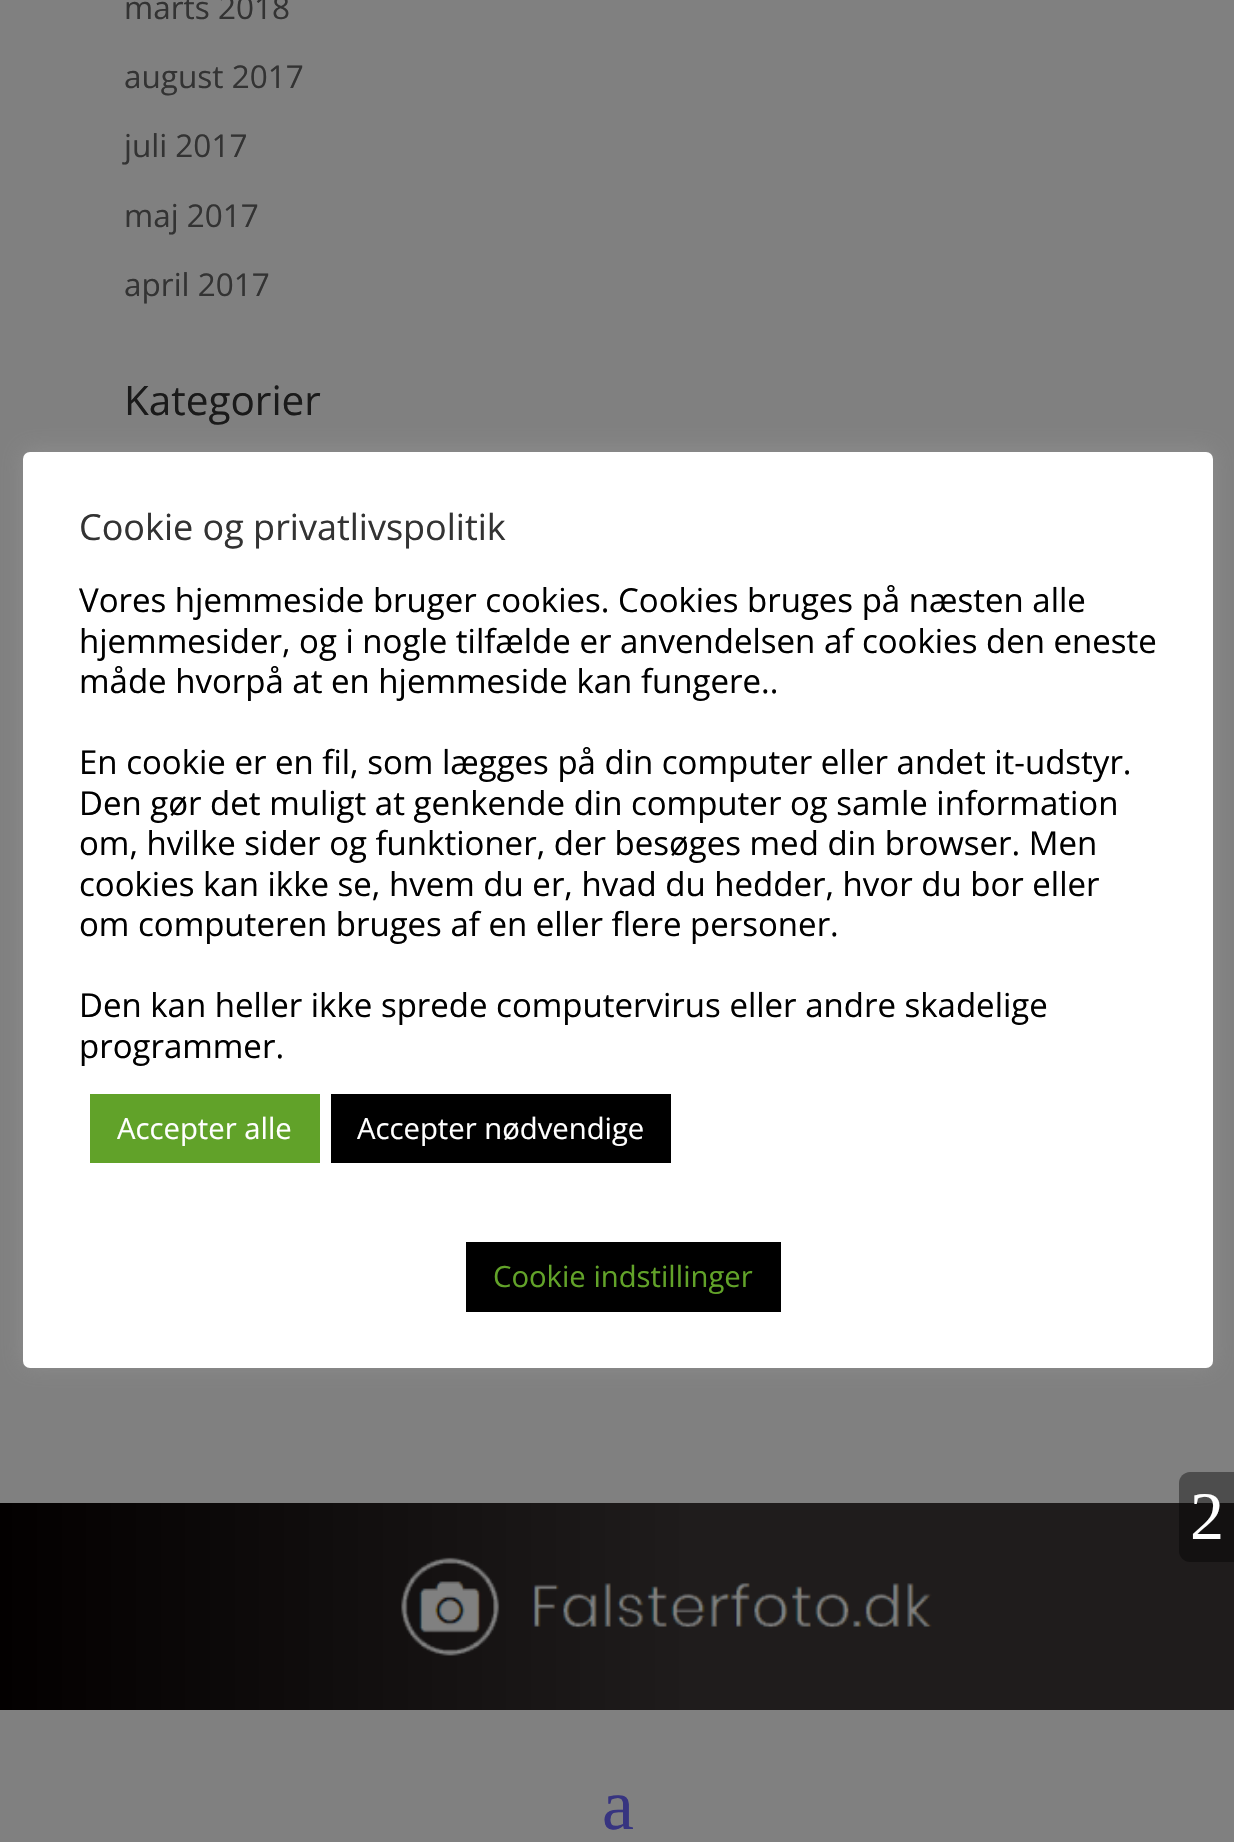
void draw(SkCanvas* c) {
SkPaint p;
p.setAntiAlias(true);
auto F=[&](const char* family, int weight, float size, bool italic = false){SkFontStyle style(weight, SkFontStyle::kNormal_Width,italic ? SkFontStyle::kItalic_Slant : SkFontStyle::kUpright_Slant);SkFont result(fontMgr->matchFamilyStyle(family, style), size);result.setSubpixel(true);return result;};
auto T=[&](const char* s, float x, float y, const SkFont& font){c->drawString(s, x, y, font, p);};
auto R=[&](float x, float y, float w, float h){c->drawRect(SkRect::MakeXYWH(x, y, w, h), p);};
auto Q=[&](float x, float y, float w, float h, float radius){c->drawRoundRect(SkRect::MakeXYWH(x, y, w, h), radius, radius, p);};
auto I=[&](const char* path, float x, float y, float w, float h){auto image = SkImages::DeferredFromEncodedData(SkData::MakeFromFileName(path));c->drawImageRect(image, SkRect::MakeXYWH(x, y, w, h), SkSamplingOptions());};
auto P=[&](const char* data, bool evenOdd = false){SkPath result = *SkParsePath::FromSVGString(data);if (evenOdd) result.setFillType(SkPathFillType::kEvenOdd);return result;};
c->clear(0xff808080);
auto f1 = F("Open Sans",400,31.5);
p.setColor(0xff333333);
T("marts 2018",124,19,f1);
T("august 2017",124,88,f1);
T("juli 2017",124,157,f1);
T("maj 2017",124,227,f1);
T("april 2017",124,296,f1);
auto f2 = F("Open Sans",400,40.5);
p.setColor(0xff1a1a1a);
T("Kategorier",124,415,f2);
{
const SkColor colors[] = {0xff030000,0xff1f1c1c};
const float stops[] = {0,.56};
const SkPoint ends[] = {{0,1668}, {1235,1668}};
p.setShader(SkGradientShader::MakeLinear(ends, colors, stops, 2, SkTileMode::kClamp));
p.setAlpha(255);
}
R(0,1503,1234,207);
I("1.png",401,1557,531,99);
auto f3 = F("Liberation Serif",400,72);
p.setShader(nullptr);
p.setColor(0xff373480);
T("a",602,1829,f3);
p.setColor(0x4dacabab);
p.setMaskFilter(SkMaskFilter::MakeBlur(kNormal_SkBlurStyle, 11));
c->drawRoundRect(SkRect::MakeXYWH(23,450,1190,916),7,7,p);
p.setMaskFilter(nullptr);
p.setColor(0xffffffff);
Q(23,452,1190,916,7);
auto f4 = F("Open Sans",400,36);
p.setColor(0xff333333);
T("Cookie og privatlivspolitik",79,540,f4);
auto f5 = F("Open Sans",400,33);
p.setColor(0xff000000);
T("Vores hjemmeside bruger cookies. Cookies bruges på næsten alle",79,612,f5);
T("hjemmesider, og i nogle tilfælde er anvendelsen af cookies den eneste",79,653,f5);
T("måde hvorpå at en hjemmeside kan fungere..",79,693,f5);
T("En cookie er en fil, som lægges på din computer eller andet it-udstyr.",79,774,f5);
T("Den gør det muligt at genkende din computer og samle information",79,815,f5);
T("om, hvilke sider og funktioner, der besøges med din browser. Men",79,855,f5);
T("cookies kan ikke se, hvem du er, hvad du hedder, hvor du bor eller",79,896,f5);
T("om computeren bruges af en eller flere personer.",79,936,f5);
T("Den kan heller ikke sprede computervirus eller andre skadelige",79,1017,f5);
T("programmer.",79,1058,f5);
p.setColor(0xff61a229);
R(90,1094,230,69);
auto f6 = F("Open Sans",400,29.25);
p.setColor(0xffffffff);
T("Accepter alle",117,1139,f6);
p.setColor(0xff000000);
R(331,1094,340,69);
p.setColor(0xffffffff);
T("Accepter nødvendige",357,1139,f6);
p.setColor(0xff000000);
R(466,1242,315,70);
p.setColor(0xff62a329);
T("Cookie indstillinger",493,1287,f6);
p.setColor(0x66000000);
c->drawPath(P("M1190 1472h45v90h-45c-6 0-11-5-11-11v-68c0-6 5-11 11-11z"),p);
auto f7 = F("Liberation Serif",400,68);
p.setColor(0xffffffff);
T("2",1190,1539,f7);
}
